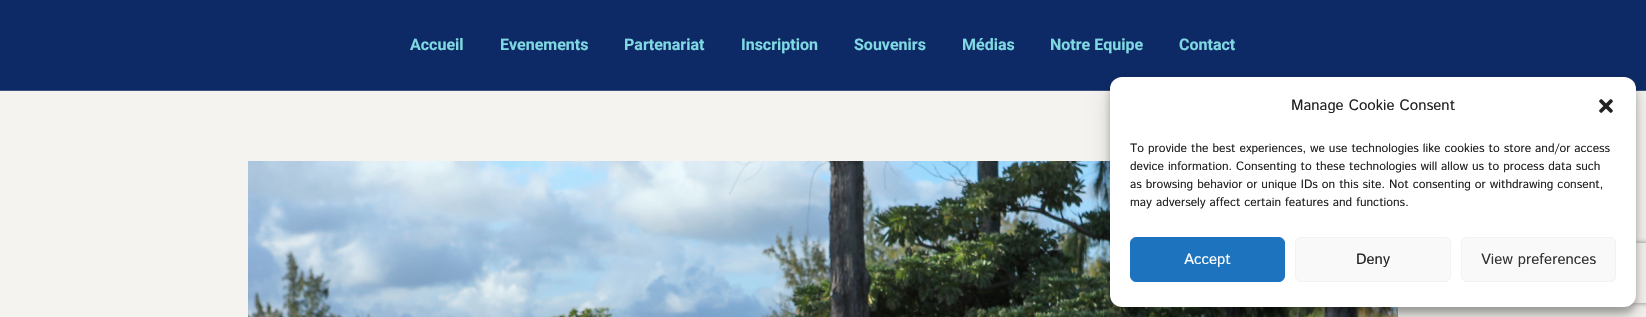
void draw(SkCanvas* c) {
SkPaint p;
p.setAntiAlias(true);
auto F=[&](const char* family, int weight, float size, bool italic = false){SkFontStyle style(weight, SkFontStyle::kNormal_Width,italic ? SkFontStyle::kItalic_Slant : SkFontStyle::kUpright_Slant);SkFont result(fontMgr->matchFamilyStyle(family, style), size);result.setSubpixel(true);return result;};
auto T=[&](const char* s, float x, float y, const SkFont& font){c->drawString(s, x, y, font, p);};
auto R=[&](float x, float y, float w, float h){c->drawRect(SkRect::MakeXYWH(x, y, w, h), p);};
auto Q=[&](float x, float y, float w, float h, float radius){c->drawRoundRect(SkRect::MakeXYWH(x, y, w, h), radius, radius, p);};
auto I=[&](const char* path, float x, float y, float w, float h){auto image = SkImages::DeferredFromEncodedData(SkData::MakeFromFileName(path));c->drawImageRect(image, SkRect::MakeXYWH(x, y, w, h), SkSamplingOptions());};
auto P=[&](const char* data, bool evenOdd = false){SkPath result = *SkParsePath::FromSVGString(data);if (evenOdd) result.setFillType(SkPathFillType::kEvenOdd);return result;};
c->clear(0xfff4f3ef);
p.setColor(0xff0d2a66);
R(0,0,1646,90);
p.setColor(0xff3d527e);
R(0,90,1646,1);
auto f1 = F("Roboto",700,16);
p.setColor(0xff7fd8e2);
T("Accueil",410,50,f1);
T("Evenements",500,50,f1);
T("Partenariat",624,50,f1);
T("Inscription",741,50,f1);
T("Souvenirs",854,50,f1);
T("Médias",962,50,f1);
T("Notre Equipe",1050,50,f1);
T("Contact",1179,50,f1);
I("1.png",248,161,1150,156);
p.setColor(0x3b000000);
p.setMaskFilter(SkMaskFilter::MakeBlur(kNormal_SkBlurStyle, 3));
c->drawRoundRect(SkRect::MakeXYWH(1110,83,526,230),12,12,p);
p.setMaskFilter(nullptr);
p.setColor(0x30000000);
p.setMaskFilter(SkMaskFilter::MakeBlur(kNormal_SkBlurStyle, 10));
c->drawRoundRect(SkRect::MakeXYWH(1110,87,526,230),12,12,p);
p.setMaskFilter(nullptr);
c->save();
c->clipPath(P("M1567 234h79v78h-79zm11 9h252c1 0 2 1 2 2v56c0 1-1 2-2 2h-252c-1 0-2-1-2-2v-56c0-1 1-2 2-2z",true),true);
p.setColor(0xff808080);
p.setMaskFilter(SkMaskFilter::MakeBlur(kNormal_SkBlurStyle, 2.5));
c->drawRoundRect(SkRect::MakeXYWH(1576,243,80,60),2,2,p);
p.setMaskFilter(nullptr);
c->restore();
p.setColor(0xffffffff);
Q(1110,77,526,230,12);
auto f2 = F("Istok Web",400,15);
p.setColor(0xff222222);
T("Manage Cookie Consent",1291,110,f2);
I("2.png",1599,99,14,14);
auto f3 = F("Istok Web",400,12);
T("To provide the best experiences, we use technologies like cookies to store and/or access",1130,152,f3);
T("device information. Consenting to these technologies will allow us to process data such",1130,170,f3);
T("as browsing behavior or unique IDs on this site. Not consenting or withdrawing consent,",1130,188,f3);
T("may adversely affect certain features and functions.",1130,206,f3);
p.setColor(0xff1e73be);
c->drawRoundRect(SkRect::MakeXYWH(1130.5,237.5,154,44),5.5,5.5,p);
p.setStroke(true);
p.setStrokeWidth(1);
c->drawRoundRect(SkRect::MakeXYWH(1130.5,237.5,154,44),5.5,5.5,p);
p.setStroke(false);
p.setColor(0xffffffff);
T("Accept",1184,264,f2);
p.setColor(0xfff9f9f9);
c->drawRoundRect(SkRect::MakeXYWH(1295.5,237.5,155,44),5.5,5.5,p);
p.setStroke(true);
p.setColor(0xfff2f2f2);
c->drawRoundRect(SkRect::MakeXYWH(1295.5,237.5,155,44),5.5,5.5,p);
p.setStroke(false);
p.setColor(0xff222222);
T("Deny",1356,264,f2);
p.setColor(0xfff9f9f9);
c->drawRoundRect(SkRect::MakeXYWH(1461.5,237.5,154,44),5.5,5.5,p);
p.setStroke(true);
p.setColor(0xfff2f2f2);
c->drawRoundRect(SkRect::MakeXYWH(1461.5,237.5,154,44),5.5,5.5,p);
p.setStroke(false);
p.setColor(0xff333333);
T("View preferences",1481,264,f2);
}
